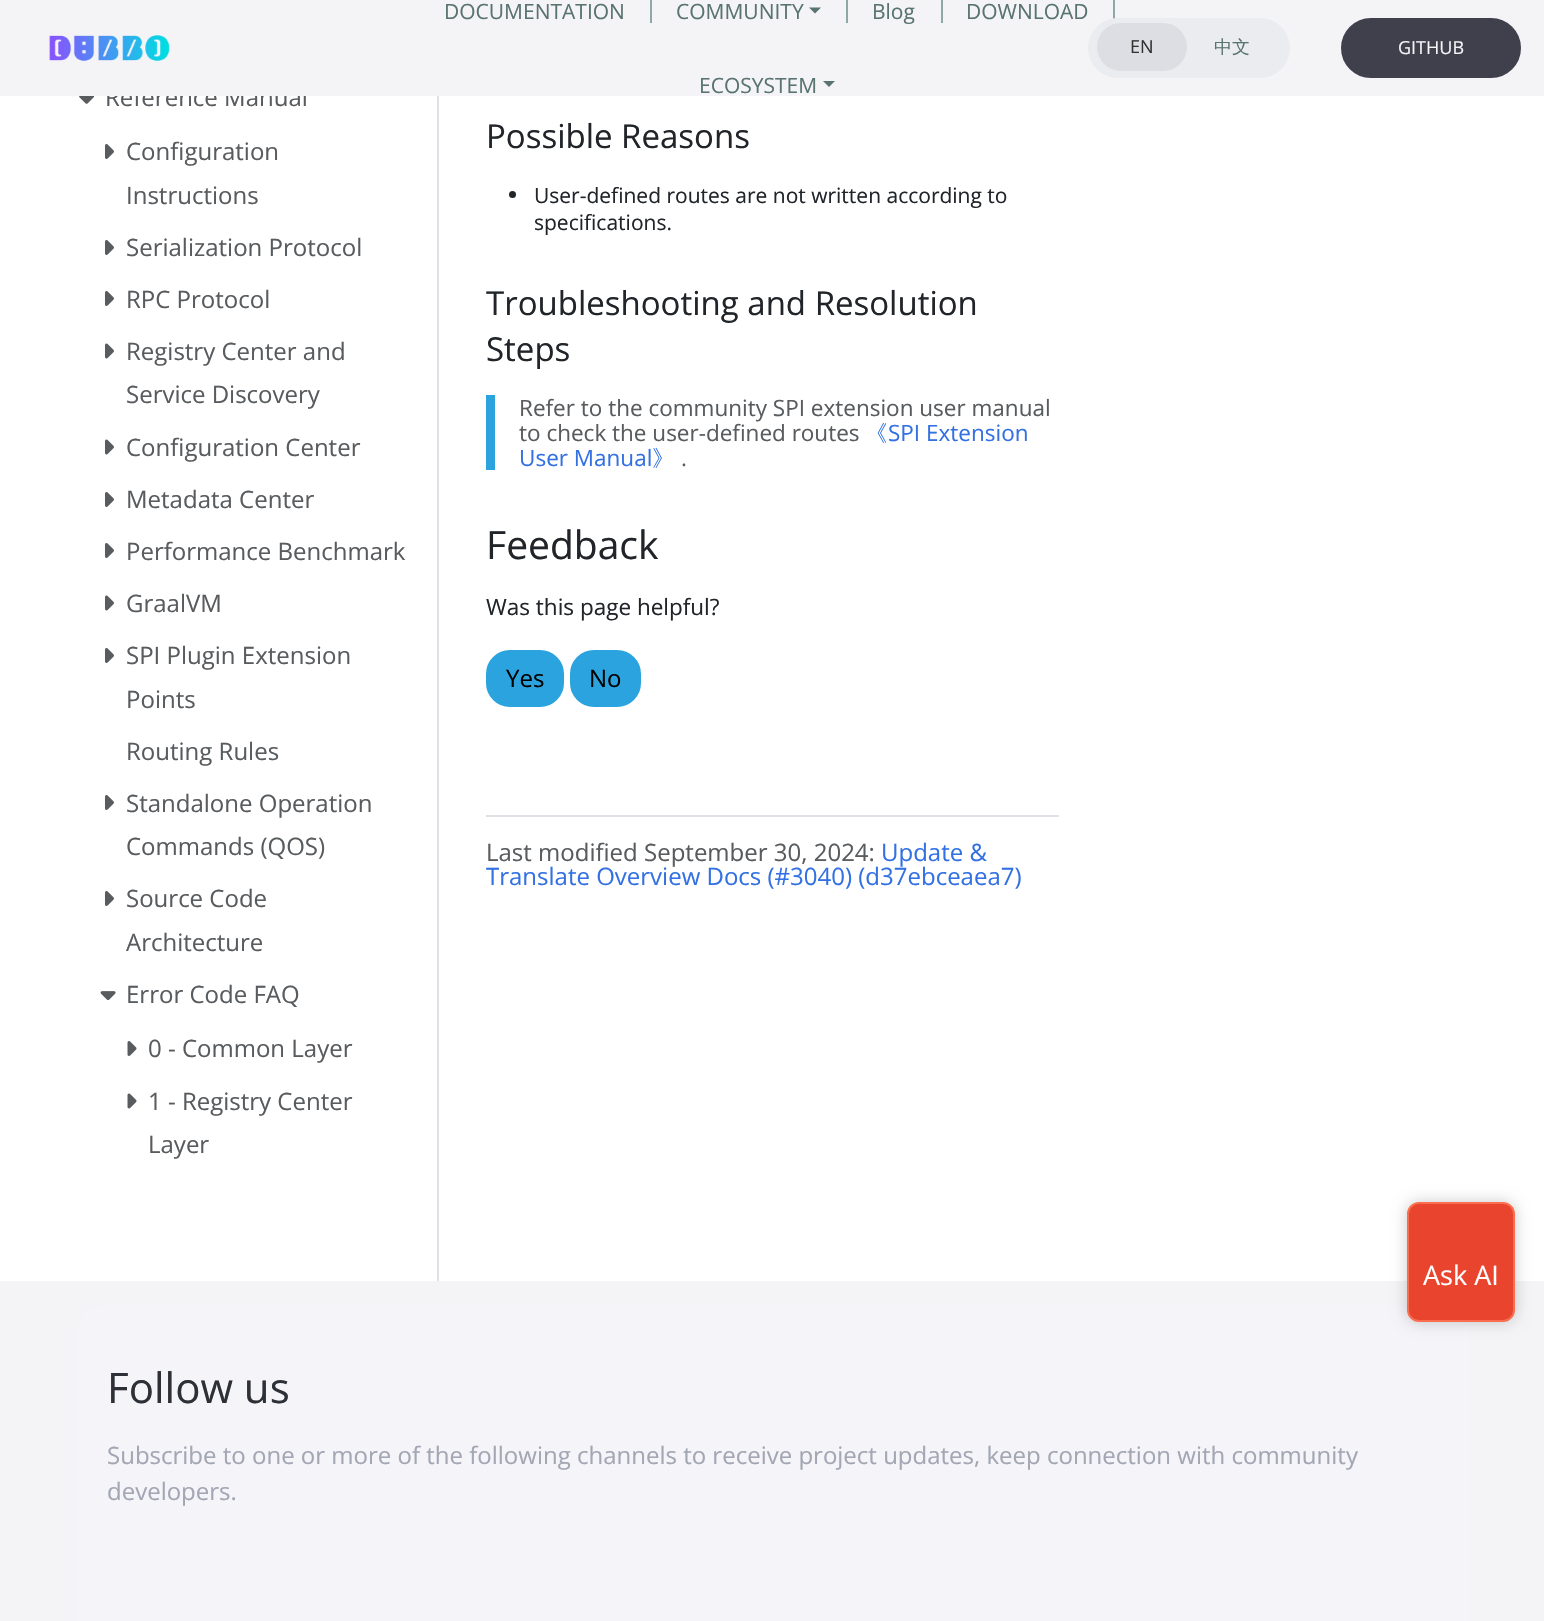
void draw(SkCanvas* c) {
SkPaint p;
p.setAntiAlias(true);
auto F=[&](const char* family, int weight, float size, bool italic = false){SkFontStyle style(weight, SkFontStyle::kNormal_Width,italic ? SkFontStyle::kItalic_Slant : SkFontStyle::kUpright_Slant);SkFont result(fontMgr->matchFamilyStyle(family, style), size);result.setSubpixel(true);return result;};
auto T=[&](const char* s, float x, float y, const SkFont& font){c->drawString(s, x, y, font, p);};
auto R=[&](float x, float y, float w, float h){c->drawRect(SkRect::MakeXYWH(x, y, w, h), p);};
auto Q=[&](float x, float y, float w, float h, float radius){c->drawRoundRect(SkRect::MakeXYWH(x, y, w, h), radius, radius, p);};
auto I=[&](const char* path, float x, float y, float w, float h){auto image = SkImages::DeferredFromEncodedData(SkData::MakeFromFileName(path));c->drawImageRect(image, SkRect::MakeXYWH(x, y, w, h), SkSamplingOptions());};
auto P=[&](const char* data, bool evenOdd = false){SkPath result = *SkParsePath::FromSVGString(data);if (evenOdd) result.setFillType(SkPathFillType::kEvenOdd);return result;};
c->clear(0xffffffff);
auto f1 = F("Open Sans",400,24);
p.setColor(0xff595c5f);
T("Reference Manual",105,106,f1);
p.setColor(0xfff4f4f6);
R(0,0,1544,96);
I("1.png",49,35,121,26);
auto f2 = F("Open Sans",400,21);
p.setColor(0xff597371);
T("DOCUMENTATION",444,19,f2);
p.setColor(0xff8fa8a6);
R(650,0,2,23);
p.setColor(0xff597371);
T("COMMUNITY",676,19,f2);
c->drawPath(P("M809 7.5h12l-6 6z"),p);
p.setColor(0xff8fa8a6);
R(846,0,2,23);
p.setColor(0xff597371);
T("Blog",872,19,f2);
p.setColor(0xff8fa8a6);
R(941,0,2,23);
p.setColor(0xff597371);
T("DOWNLOAD",966,19,f2);
p.setColor(0xff8fa8a6);
R(1113,0,2,23);
p.setColor(0xff597371);
T("ECOSYSTEM",699,93,f2);
c->drawPath(P("M823 81h12l-6 6z"),p);
p.setColor(0xffebecef);
Q(1088,18,202,60,30);
p.setColor(0xffdddee4);
Q(1097,23,90,48,24);
auto f3 = F("Open Sans",400,18);
p.setColor(0xff303030);
T("EN",1130,53,f3);
auto f4 = F("WenQuanYi Zen Hei",500,18);
p.setColor(0xff597371);
T("中文",1214,53,f4);
p.setColor(0xff403f4c);
c->drawRoundRect(SkRect::MakeXYWH(1342,19,178,58),29,29,p);
p.setStroke(true);
p.setStrokeWidth(2);
c->drawRoundRect(SkRect::MakeXYWH(1342,19,178,58),29,29,p);
p.setStroke(false);
p.setColor(0xfff4f4f6);
T("GITHUB",1398,54,f3);
p.setColor(0xffdee2e6);
R(437,96,2,1185);
I("2.png",79,96,16,8);
I("3.png",105,144,9,15);
p.setColor(0xff595c5f);
T("Configuration",126,160,f1);
T("Instructions",126,204,f1);
I("3.png",105,240,9,15);
T("Serialization Protocol",126,256,f1);
I("3.png",105,291,9,15);
T("RPC Protocol",126,308,f1);
I("4.png",105,343,9,16);
T("Registry Center and",126,360,f1);
T("Service Discovery",126,403,f1);
I("4.png",105,439,9,16);
T("Configuration Center",126,456,f1);
I("3.png",105,492,9,15);
T("Metadata Center",126,508,f1);
I("3.png",105,543,9,15);
T("Performance Benchmark",126,560,f1);
I("4.png",105,595,9,16);
T("GraalVM",126,612,f1);
I("3.png",105,648,9,15);
T("SPI Plugin Extension",126,664,f1);
T("Points",126,708,f1);
T("Routing Rules",126,760,f1);
I("3.png",105,795,9,15);
T("Standalone Operation",126,812,f1);
T("Commands (QOS)",126,855,f1);
I("3.png",105,891,9,15);
T("Source Code",126,907,f1);
T("Architecture",126,951,f1);
I("5.png",100,991,16,10);
T("Error Code FAQ",126,1003,f1);
I("6.png",127,1041,10,15);
T("0 - Common Layer",148,1057,f1);
I("7.png",127,1093,10,16);
T("1 - Registry Center",148,1110,f1);
T("Layer",148,1153,f1);
auto f5 = F("Open Sans",400,33);
p.setColor(0xff212529);
T("Possible Reasons",486,148,f5);
c->drawCircle(512.5,194.5,3.5,p);
T("User-defined routes are not written according to",534,203,f2);
T("specifications.",534,230,f2);
T("Troubleshooting and Resolution",486,315,f5);
T("Steps",486,361,f5);
p.setColor(0xff2ba3de);
R(486,395,9,75);
auto f6 = F("Open Sans",400,22.5);
p.setColor(0xff595c5f);
T("Refer to the community SPI extension user manual",519,416,f6);
T("to check the user-defined routes",519,441,f6);
auto f7 = F("WenQuanYi Zen Hei",500,22.5);
p.setColor(0xff3371e3);
T("《",865,441,f7);
T("SPI Extension",888,441,f6);
T("User Manual",519,466,f6);
T("》",652,466,f7);
p.setColor(0xff595c5f);
T(".",681,466,f6);
auto f8 = F("Open Sans",400,39);
p.setColor(0xff212529);
T("Feedback",486,559,f8);
T("Was this page helpful?",486,615,f6);
p.setColor(0xff2ba3de);
c->drawRoundRect(SkRect::MakeXYWH(487,651,76,55),23,23,p);
p.setStroke(true);
c->drawRoundRect(SkRect::MakeXYWH(487,651,76,55),23,23,p);
p.setStroke(false);
p.setColor(0xff000000);
T("Yes",506,687,f1);
p.setColor(0xff2ba3de);
c->drawRoundRect(SkRect::MakeXYWH(571,651,69,55),23,23,p);
p.setStroke(true);
c->drawRoundRect(SkRect::MakeXYWH(571,651,69,55),23,23,p);
p.setStroke(false);
p.setColor(0xff000000);
T("No",589,687,f1);
p.setColor(0xffdee2e6);
R(486,815,573,2);
p.setColor(0xff595c5f);
T("Last modified September 30, 2024:",486,861,f1);
p.setColor(0xff3371e3);
T("Update &",881,861,f1);
T("Translate Overview Docs (#3040) (d37ebceaea7)",486,885,f1);
p.setColor(0xfff4f4f6);
R(0,1281,1544,340);
p.setColor(0xfff4f4f9);
Q(78,1305,1391,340,24);
p.setColor(0x33000000);
p.setMaskFilter(SkMaskFilter::MakeBlur(kNormal_SkBlurStyle, 7.5));
c->drawRoundRect(SkRect::MakeXYWH(1407,1202,108,120),12,12,p);
p.setMaskFilter(nullptr);
p.setColor(0xffe8442e);
c->drawRoundRect(SkRect::MakeXYWH(1408,1203,106,118),11,11,p);
p.setStroke(true);
p.setColor(0xfffa6d4f);
c->drawRoundRect(SkRect::MakeXYWH(1408,1203,106,118),11,11,p);
auto f9 = F("Open Sans",400,27);
p.setStroke(false);
p.setColor(0xffffffff);
T("Ask AI",1423,1285,f9);
auto f10 = F("Open Sans",400,42);
p.setColor(0xff2e3038);
T("Follow us",107,1403,f10);
p.setColor(0xffa3a6b3);
T("Subscribe to one or more of the following channels to receive project updates, keep connection with community",107,1464,f1);
T("developers.",107,1500,f1);
}
